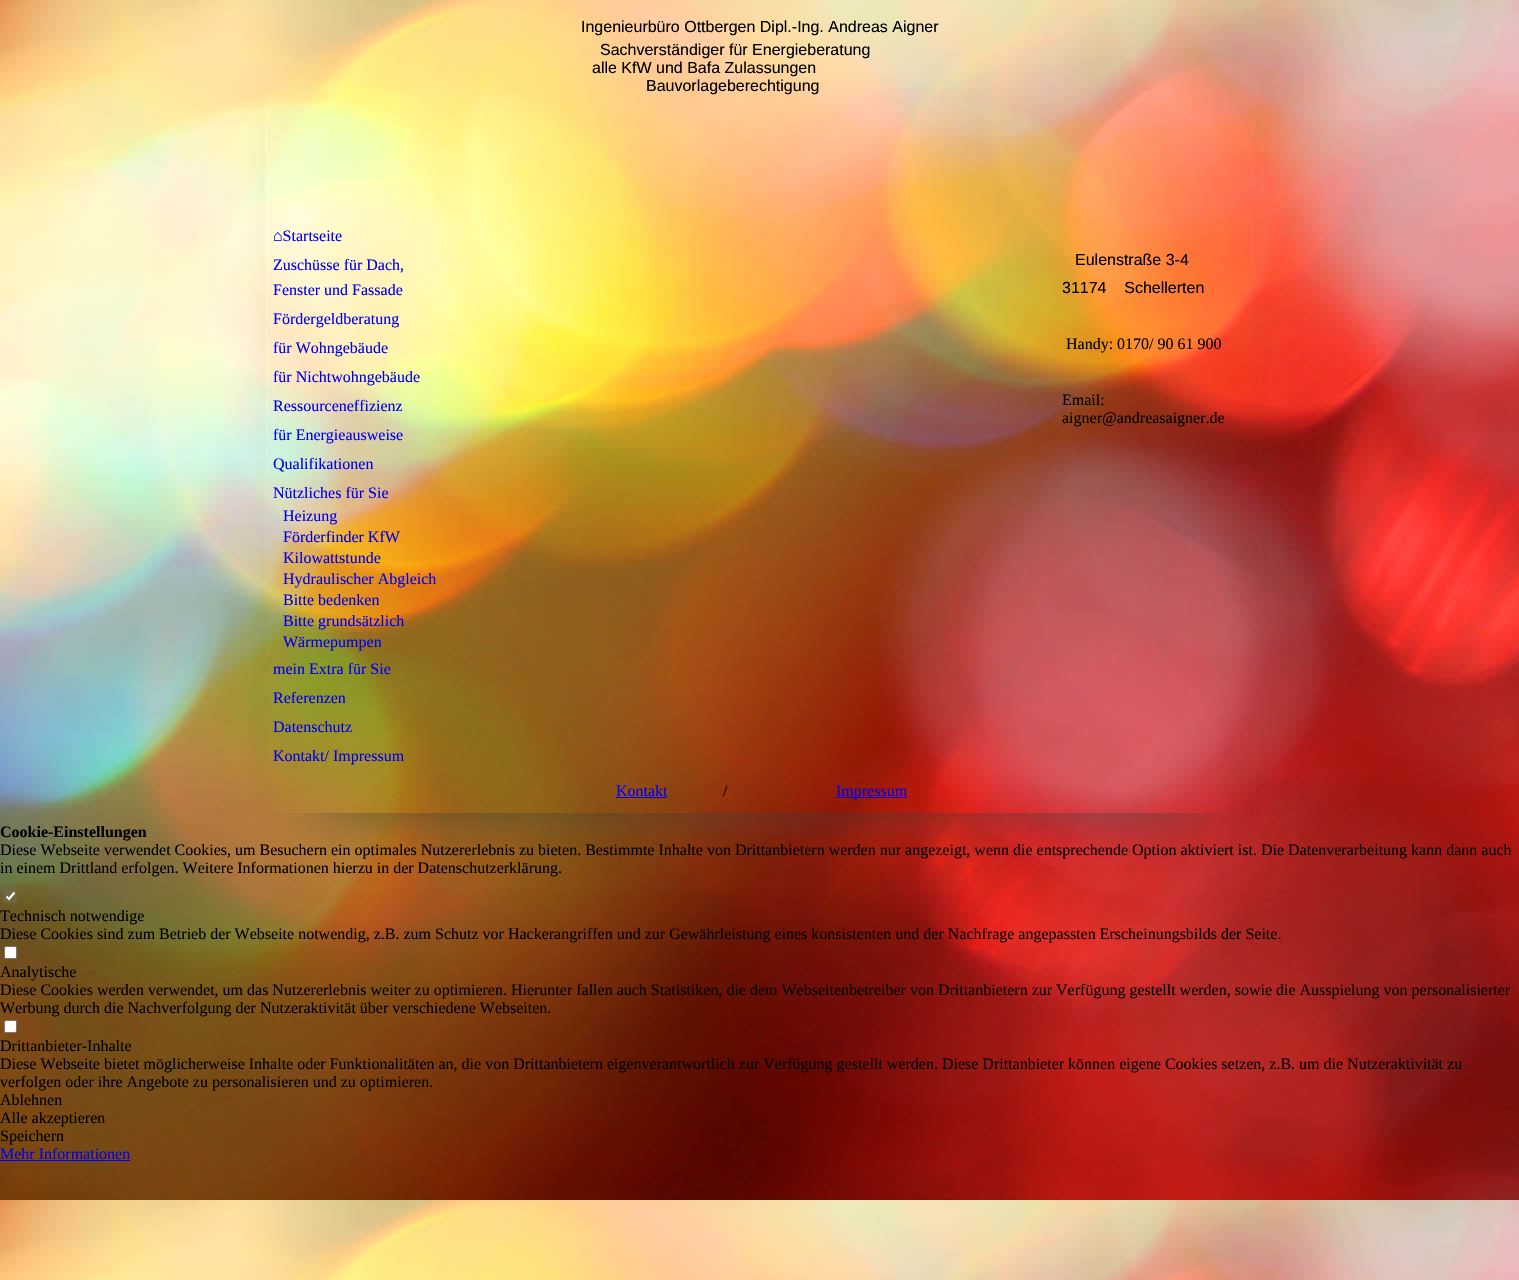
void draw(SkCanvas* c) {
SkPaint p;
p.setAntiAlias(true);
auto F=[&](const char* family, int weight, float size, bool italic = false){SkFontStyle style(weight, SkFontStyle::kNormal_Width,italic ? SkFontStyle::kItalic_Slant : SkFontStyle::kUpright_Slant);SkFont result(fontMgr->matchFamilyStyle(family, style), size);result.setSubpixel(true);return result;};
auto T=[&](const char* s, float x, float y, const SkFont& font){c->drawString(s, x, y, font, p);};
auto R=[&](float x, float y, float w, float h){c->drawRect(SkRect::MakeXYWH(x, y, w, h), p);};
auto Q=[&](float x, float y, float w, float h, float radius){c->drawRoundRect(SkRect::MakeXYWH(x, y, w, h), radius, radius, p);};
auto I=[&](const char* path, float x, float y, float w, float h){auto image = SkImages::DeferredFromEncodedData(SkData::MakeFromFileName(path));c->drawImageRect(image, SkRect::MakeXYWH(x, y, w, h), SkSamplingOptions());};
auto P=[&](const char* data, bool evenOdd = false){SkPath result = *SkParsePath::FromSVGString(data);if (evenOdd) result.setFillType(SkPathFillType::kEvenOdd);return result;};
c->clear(0xffffffff);
I("1.png",0,0,1519,1280);
c->save();
c->clipPath(P("M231 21h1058v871h-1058zm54-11h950c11 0 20 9 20 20v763c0 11-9 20-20 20h-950c-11 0-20-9-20-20v-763c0-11 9-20 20-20z",true),true);
p.setColor(0xbf3c3c3c);
p.setMaskFilter(SkMaskFilter::MakeBlur(kNormal_SkBlurStyle, 27.5));
c->drawRect(SkRect::MakeXYWH(315,105,890,703),p);
p.setMaskFilter(nullptr);
c->restore();
auto f1 = F("Liberation Sans",400,16);
p.setColor(0xff000000);
T("Ingenieurbüro Ottbergen Dipl.-Ing. Andreas Aigner",581,32,f1);
T("Sachverständiger für Energieberatung",600,55,f1);
T("alle KfW und Bafa Zulassungen",592,73,f1);
T("Bauvorlageberechtigung",646,91,f1);
auto f2 = F("Liberation Serif",400,16);
p.setColor(0xff0000ee);
T("⌂Startseite",273,241,f2);
T("Zuschüsse für Dach,",273,270,f2);
T("Fenster und Fassade",273,295,f2);
T("Fördergeldberatung",273,324,f2);
T("für Wohngebäude",273,353,f2);
T("für Nichtwohngebäude",273,382,f2);
T("Ressourceneffizienz",273,411,f2);
T("für Energieausweise",273,440,f2);
T("Qualifikationen",273,469,f2);
T("Nützliches für Sie",273,498,f2);
T("Heizung",283,521,f2);
T("Förderfinder KfW",283,542,f2);
T("Kilowattstunde",283,563,f2);
T("Hydraulischer Abgleich",283,584,f2);
T("Bitte bedenken",283,605,f2);
T("Bitte grundsätzlich",283,626,f2);
T("Wärmepumpen",283,647,f2);
T("mein Extra für Sie",273,674,f2);
T("Referenzen",273,703,f2);
T("Datenschutz",273,732,f2);
T("Kontakt/ Impressum",273,761,f2);
p.setColor(0xff000000);
T("Eulenstraße 3-4",1075,265,f1);
T("31174    Schellerten",1062,293,f1);
T("Handy: 0170/ 90 61 900",1066,349,f2);
T("Email:",1062,405,f2);
T("aigner@andreasaigner.de",1062,423,f2);
p.setColor(0xff0000ee);
T("Kontakt",616,796,f2);
R(616,797,51,1);
p.setColor(0xff000000);
T("/",723,796,f2);
p.setColor(0xff0000ee);
R(836,797,71,1);
T("Impressum",836,796,f2);
auto f3 = F("Liberation Serif",700,16);
p.setColor(0xff000000);
T("Cookie-Einstellungen",0,837,f3);
T("Diese Webseite verwendet Cookies, um Besuchern ein optimales Nutzererlebnis zu bieten. Bestimmte Inhalte von Drittanbietern werden nur angezeigt, wenn die entsprechende Option aktiviert ist. Die Datenverarbeitung kann dann auch",0,855,f2);
T("in einem Drittland erfolgen. Weitere Informationen hierzu in der Datenschutzerklärung.",0,873,f2);
p.setColor(0x4d767676);
Q(4,890,13,13,2);
p.setStroke(true);
p.setStrokeWidth(2.1);
p.setColor(0xffffffff);
c->drawPath(P("M6.5 896.5l2.5 2.5l5.5-6.5"),p);
p.setStroke(false);
p.setColor(0xff000000);
T("Technisch notwendige",0,921,f2);
T("Diese Cookies sind zum Betrieb der Webseite notwendig, z.B. zum Schutz vor Hackerangriffen und zur Gewährleistung eines konsistenten und der Nachfrage angepassten Erscheinungsbilds der Seite.",0,939,f2);
p.setColor(0xffffffff);
c->drawRoundRect(SkRect::MakeXYWH(4.5,946.5,12,12),1.5,1.5,p);
p.setStroke(true);
p.setStrokeWidth(1);
p.setColor(0xff767676);
c->drawRoundRect(SkRect::MakeXYWH(4.5,946.5,12,12),1.5,1.5,p);
p.setStroke(false);
p.setColor(0xff000000);
T("Analytische",0,977,f2);
T("Diese Cookies werden verwendet, um das Nutzererlebnis weiter zu optimieren. Hierunter fallen auch Statistiken, die dem Webseitenbetreiber von Drittanbietern zur Verfügung gestellt werden, sowie die Ausspielung von personalisierter",0,995,f2);
T("Werbung durch die Nachverfolgung der Nutzeraktivität über verschiedene Webseiten.",0,1013,f2);
p.setColor(0xffffffff);
c->drawRoundRect(SkRect::MakeXYWH(4.5,1020.5,12,12),1.5,1.5,p);
p.setStroke(true);
p.setColor(0xff767676);
c->drawRoundRect(SkRect::MakeXYWH(4.5,1020.5,12,12),1.5,1.5,p);
p.setStroke(false);
p.setColor(0xff000000);
T("Drittanbieter-Inhalte",0,1051,f2);
T("Diese Webseite bietet möglicherweise Inhalte oder Funktionalitäten an, die von Drittanbietern eigenverantwortlich zur Verfügung gestellt werden. Diese Drittanbieter können eigene Cookies setzen, z.B. um die Nutzeraktivität zu",0,1069,f2);
T("verfolgen oder ihre Angebote zu personalisieren und zu optimieren.",0,1087,f2);
T("Ablehnen",0,1105,f2);
T("Alle akzeptieren",0,1123,f2);
T("Speichern",0,1141,f2);
p.setColor(0xff0000ee);
T("Mehr Informationen",0,1159,f2);
R(0,1160,130,1);
}
